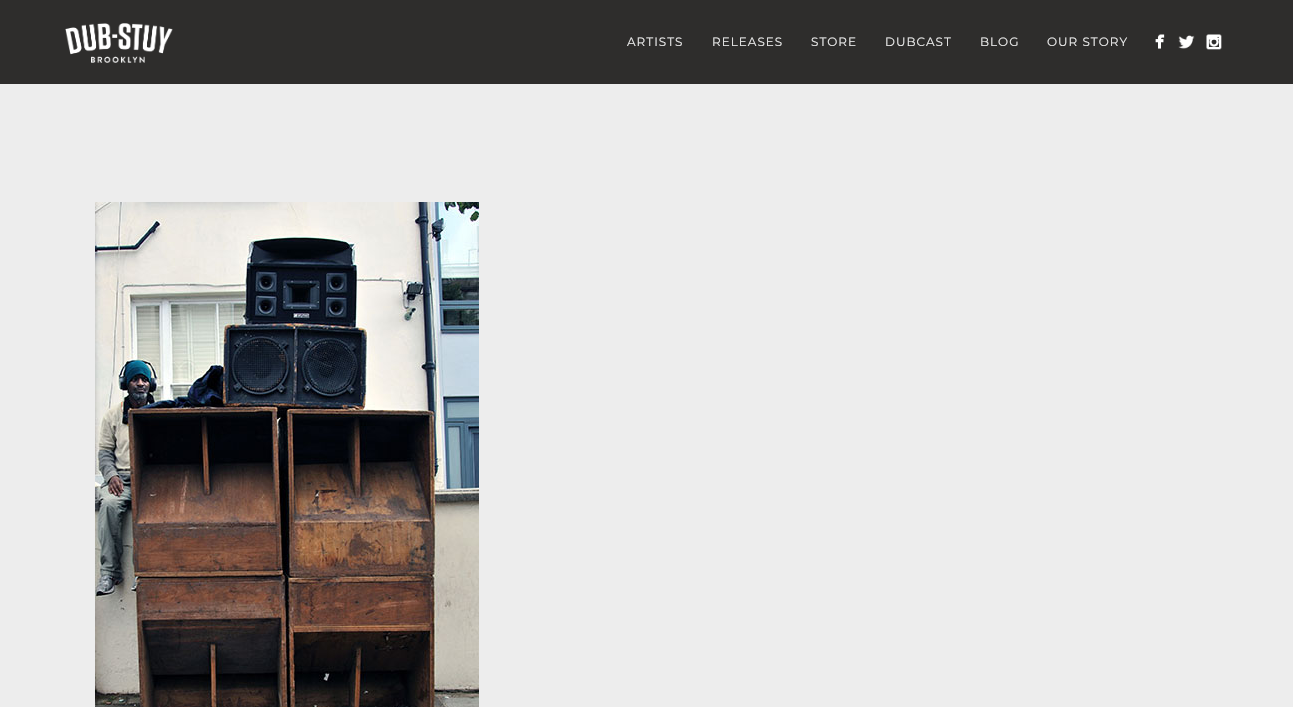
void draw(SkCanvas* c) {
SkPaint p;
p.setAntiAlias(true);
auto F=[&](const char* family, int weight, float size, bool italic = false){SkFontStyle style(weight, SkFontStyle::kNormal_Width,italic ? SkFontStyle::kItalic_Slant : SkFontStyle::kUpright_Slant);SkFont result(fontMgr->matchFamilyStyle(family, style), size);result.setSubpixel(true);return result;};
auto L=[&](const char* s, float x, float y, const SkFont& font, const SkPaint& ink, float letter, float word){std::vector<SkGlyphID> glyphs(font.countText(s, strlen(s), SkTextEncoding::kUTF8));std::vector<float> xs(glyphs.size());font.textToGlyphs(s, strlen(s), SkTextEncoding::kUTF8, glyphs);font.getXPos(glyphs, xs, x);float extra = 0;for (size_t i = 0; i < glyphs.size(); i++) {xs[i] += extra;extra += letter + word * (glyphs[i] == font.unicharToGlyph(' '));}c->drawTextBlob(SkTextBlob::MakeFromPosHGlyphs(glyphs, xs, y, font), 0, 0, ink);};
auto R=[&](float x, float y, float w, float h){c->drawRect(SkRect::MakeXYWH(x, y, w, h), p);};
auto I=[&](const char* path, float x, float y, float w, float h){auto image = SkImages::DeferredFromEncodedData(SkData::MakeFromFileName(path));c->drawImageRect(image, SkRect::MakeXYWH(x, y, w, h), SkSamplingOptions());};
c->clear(0xffededed);
p.setColor(0xff2e2d2c);
R(0,0,1293,84);
I("1.png",65,23,108,40);
auto f1 = F("Montserrat",400,12);
p.setColor(0xffededed);
L("ARTISTS",627,46,f1,p,1,0);
L("RELEASES",712,46,f1,p,1,0);
L("STORE",811,46,f1,p,1,0);
L("DUBCAST",885,46,f1,p,1,0);
L("BLOG",980,46,f1,p,1,0);
L("OUR STORY",1047,46,f1,p,1,0);
I("2.png",1155,34,10,15);
I("3.png",1178,35,17,14);
I("4.png",1206,34,16,16);
I("5.png",95,202,384,505);
}
